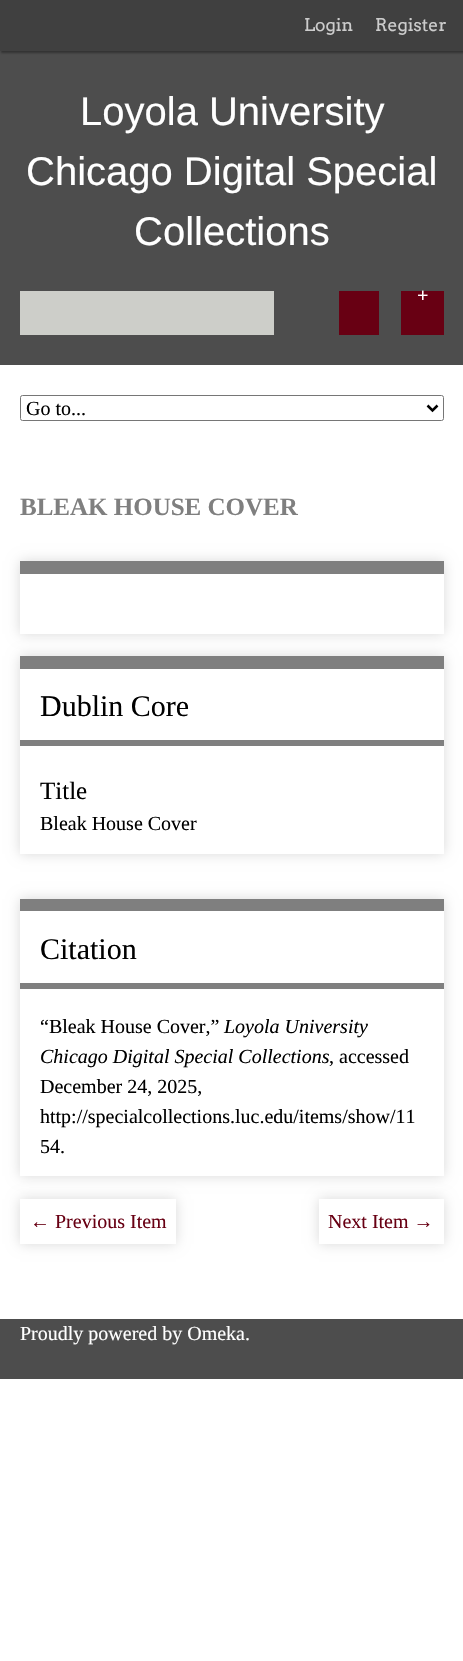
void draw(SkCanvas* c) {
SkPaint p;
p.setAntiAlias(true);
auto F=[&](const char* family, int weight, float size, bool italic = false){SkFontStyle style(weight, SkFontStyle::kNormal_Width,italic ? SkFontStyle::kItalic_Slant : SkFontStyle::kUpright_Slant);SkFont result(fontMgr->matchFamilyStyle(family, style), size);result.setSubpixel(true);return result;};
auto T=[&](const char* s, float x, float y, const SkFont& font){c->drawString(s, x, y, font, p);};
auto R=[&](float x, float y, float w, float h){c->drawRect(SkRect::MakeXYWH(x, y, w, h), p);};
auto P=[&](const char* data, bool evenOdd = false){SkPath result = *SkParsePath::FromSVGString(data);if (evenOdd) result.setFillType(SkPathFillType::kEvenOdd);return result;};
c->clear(0xffffffff);
p.setColor(0xff4d4d4d);
R(0,51,463,314);
p.setColor(0x59000000);
p.setMaskFilter(SkMaskFilter::MakeBlur(kNormal_SkBlurStyle, 1));
c->drawRect(SkRect::MakeXYWH(1,1,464,52),p);
p.setMaskFilter(nullptr);
p.setColor(0xff404040);
R(0,0,463,51);
auto f1 = F("Arvo",400,17.5);
p.setColor(0xffcccccc);
T("Login",304,31,f1);
T("Register",375,31,f1);
auto f2 = F("Liberation Sans",400,40);
p.setColor(0xffffffff);
T("Loyola University",80,125,f2);
T("Chicago Digital Special",26,185,f2);
T("Collections",134,245,f2);
p.setColor(0xffcdcec9);
R(20,291,254,44);
p.setColor(0xff680013);
R(339,291,40,44);
R(401,291,43,44);
auto f3 = F("Liberation Serif",700,20);
p.setColor(0xffffffff);
T("+",417,302,f3);
p.setStroke(true);
p.setStrokeWidth(1);
p.setColor(0xff767676);
c->drawRoundRect(SkRect::MakeXYWH(20.5,395.5,423,25),2,2,p);
p.setStrokeWidth(2.5);
p.setColor(0xff000000);
c->drawPath(P("M427.5 405.5l5 5l5-5"),p);
auto f4 = F("Liberation Serif",400,20);
p.setStroke(false);
T("Go to...",26,415,f4);
auto f5 = F("Liberation Serif",700,25);
p.setColor(0xff7f7f7f);
T("BLEAK HOUSE COVER",20,515,f5);
p.setColor(0x26000000);
p.setMaskFilter(SkMaskFilter::MakeBlur(kNormal_SkBlurStyle, 6));
c->drawRect(SkRect::MakeXYWH(20,561,424,73),p);
p.setMaskFilter(nullptr);
p.setColor(0xffffffff);
R(20,574,424,60);
p.setColor(0xff7f7f7f);
R(20,561,424,13);
p.setColor(0x26000000);
p.setMaskFilter(SkMaskFilter::MakeBlur(kNormal_SkBlurStyle, 6));
c->drawRect(SkRect::MakeXYWH(20,656,424,198),p);
p.setMaskFilter(nullptr);
p.setColor(0xffffffff);
R(20,669,424,185);
p.setColor(0xff7f7f7f);
R(20,656,424,13);
R(20,740,424,6);
auto f6 = F("Liberation Serif",400,30);
p.setColor(0xff000000);
T("Dublin Core",40,716,f6);
auto f7 = F("Liberation Serif",400,25);
T("Title",40,799,f7);
T("Bleak House Cover",40,830,f4);
p.setColor(0x26000000);
p.setMaskFilter(SkMaskFilter::MakeBlur(kNormal_SkBlurStyle, 6));
c->drawRect(SkRect::MakeXYWH(20,899,424,277),p);
p.setMaskFilter(nullptr);
p.setColor(0xffffffff);
R(20,911,424,265);
p.setColor(0xff7f7f7f);
R(20,899,424,12);
R(20,983,424,6);
p.setColor(0xff000000);
T("Citation",40,959,f6);
T("“Bleak House Cover,”",40,1033,f4);
auto f8 = F("Liberation Serif",400,20,true);
T("Loyola University",224,1033,f8);
T("Chicago Digital Special Collections",40,1063,f8);
T(", accessed",329,1063,f4);
T("December 24, 2025,",40,1093,f4);
T("http://specialcollections.luc.edu/items/show/11",40,1123,f4);
T("54.",40,1153,f4);
p.setColor(0x26000000);
p.setMaskFilter(SkMaskFilter::MakeBlur(kNormal_SkBlurStyle, 6));
c->drawRect(SkRect::MakeXYWH(20,1199,156,45),p);
p.setMaskFilter(nullptr);
p.setColor(0xffffffff);
R(20,1199,156,45);
p.setColor(0xff680013);
T("← Previous Item",30,1228,f4);
p.setColor(0x26000000);
p.setMaskFilter(SkMaskFilter::MakeBlur(kNormal_SkBlurStyle, 6));
c->drawRect(SkRect::MakeXYWH(319,1199,125,45),p);
p.setMaskFilter(nullptr);
p.setColor(0xffffffff);
R(319,1199,125,45);
p.setColor(0xff680013);
T("Next Item →",328,1228,f4);
p.setColor(0xff4d4d4d);
R(0,1319,463,60);
p.setColor(0xffffffff);
T("Proudly powered by Omeka.",20,1340,f4);
}
